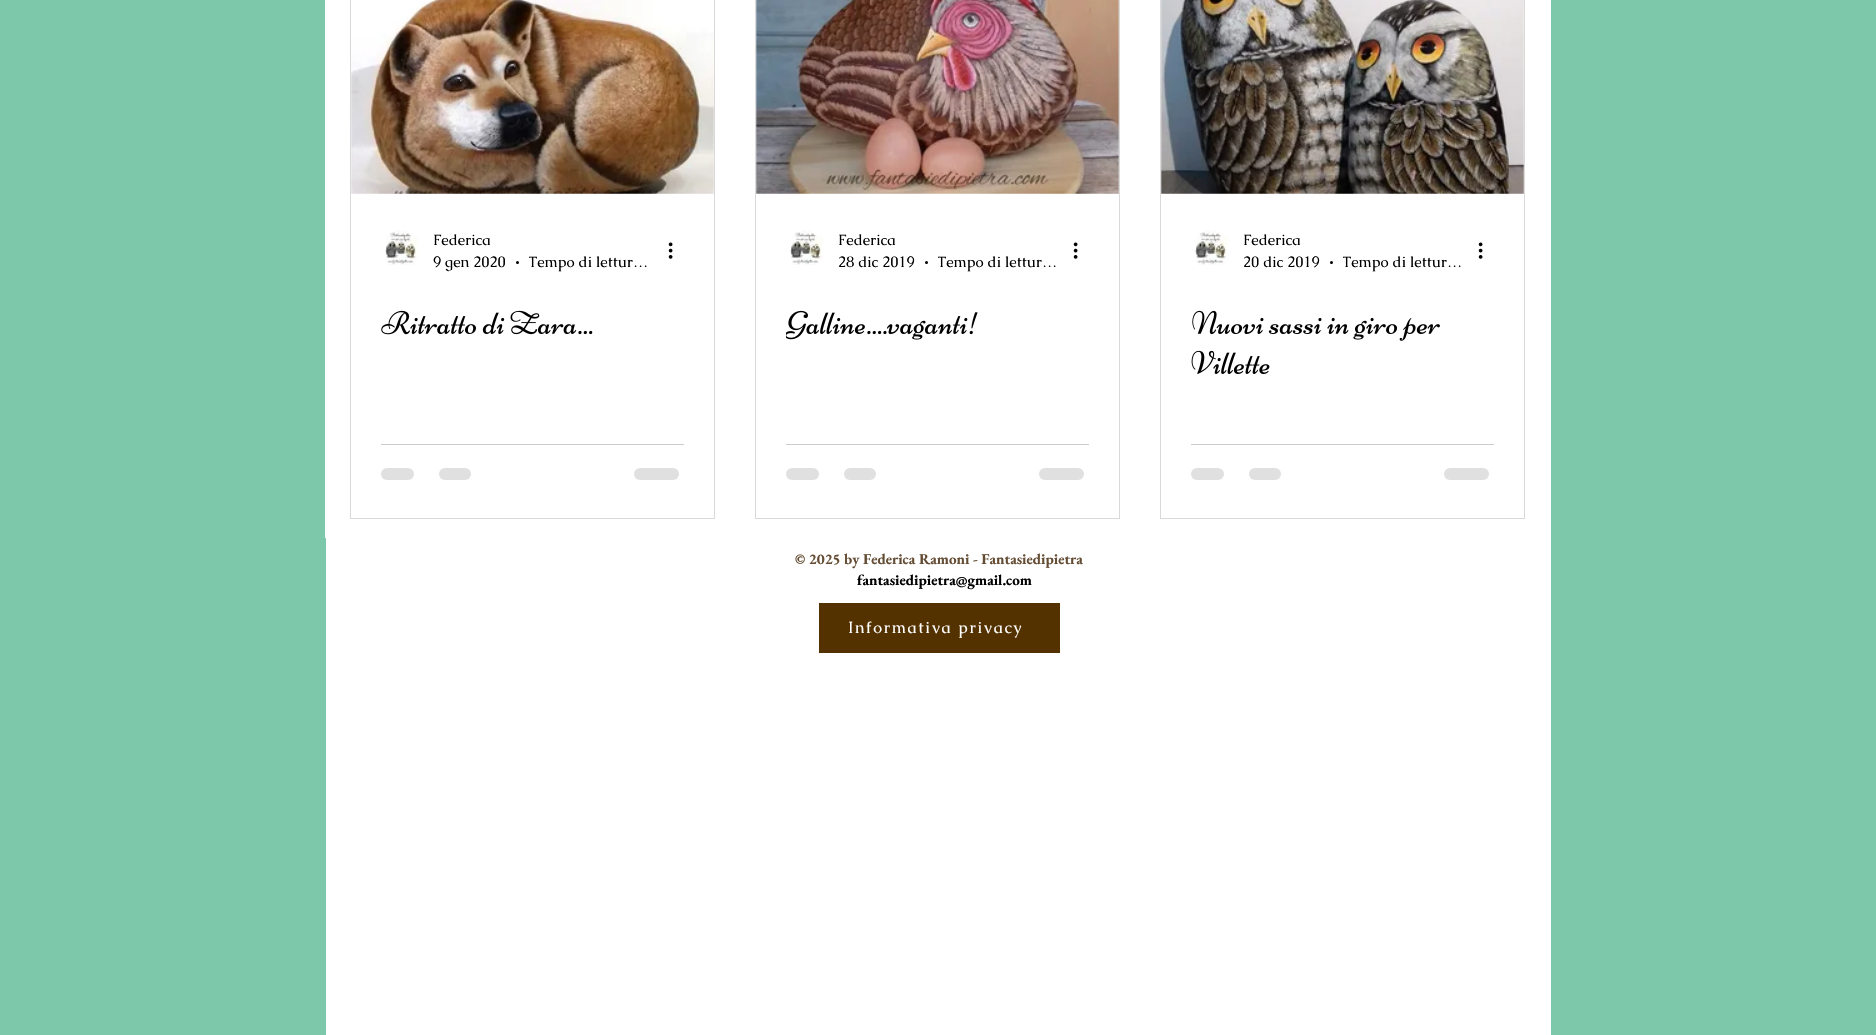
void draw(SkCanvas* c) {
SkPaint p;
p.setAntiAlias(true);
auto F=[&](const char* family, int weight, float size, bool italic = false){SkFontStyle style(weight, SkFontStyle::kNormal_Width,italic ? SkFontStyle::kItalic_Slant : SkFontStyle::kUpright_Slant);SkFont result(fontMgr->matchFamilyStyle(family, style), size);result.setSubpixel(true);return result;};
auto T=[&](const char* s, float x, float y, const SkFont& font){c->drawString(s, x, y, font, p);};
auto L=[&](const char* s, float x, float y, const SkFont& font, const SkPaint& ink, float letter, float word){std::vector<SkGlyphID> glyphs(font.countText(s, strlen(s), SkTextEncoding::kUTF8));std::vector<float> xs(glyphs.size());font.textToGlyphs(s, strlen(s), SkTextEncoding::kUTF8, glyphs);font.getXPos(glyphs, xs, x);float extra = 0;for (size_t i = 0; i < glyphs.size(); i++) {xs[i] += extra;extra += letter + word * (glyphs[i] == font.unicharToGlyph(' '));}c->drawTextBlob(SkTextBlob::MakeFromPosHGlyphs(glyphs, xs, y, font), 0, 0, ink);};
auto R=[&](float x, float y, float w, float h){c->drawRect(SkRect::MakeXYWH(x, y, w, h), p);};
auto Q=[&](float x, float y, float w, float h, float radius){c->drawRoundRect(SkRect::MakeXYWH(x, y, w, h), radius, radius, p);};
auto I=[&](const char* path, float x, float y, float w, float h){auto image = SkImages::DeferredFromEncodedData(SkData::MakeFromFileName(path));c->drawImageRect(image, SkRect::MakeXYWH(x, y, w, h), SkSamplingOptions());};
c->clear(0xff7dc8ab);
p.setColor(0xffffffff);
R(325,0,1226,538);
p.setStroke(true);
p.setStrokeWidth(1);
p.setColor(0xffd9d9d9);
c->drawRect(SkRect::MakeXYWH(350.5,-.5,364,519),p);
I("1.png",351,0,363,194);
I("2.png",385,230,34,35);
auto f1 = F("Caudex",400,15);
p.setStroke(false);
p.setColor(0xff000000);
T("Federica",433,245,f1);
T("9 gen 2020",433,267,f1);
c->drawCircle(517.5,262.5,1.5,p);
c->save();
c->clipRect(SkRect::MakeXYWH(529,253,127,20));
T("Tempo di lettur…",528,267,f1);
c->restore();
I("3.png",668,242,5,17);
I("4.png",381,310,212,25);
p.setColor(0xffcccccc);
R(381,444,303,1);
p.setColor(0xffe0e0e0);
Q(381,468,33,12,6);
Q(439,468,32,12,6);
Q(634,468,45,12,6);
p.setStroke(true);
p.setColor(0xffd9d9d9);
c->drawRect(SkRect::MakeXYWH(755.5,-.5,364,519),p);
I("5.png",756,0,363,194);
I("6.png",790,230,34,35);
p.setStroke(false);
p.setColor(0xff000000);
T("Federica",838,245,f1);
T("28 dic 2019",838,267,f1);
c->drawCircle(926.5,262.5,1.5,p);
c->save();
c->clipRect(SkRect::MakeXYWH(938,253,123,20));
T("Tempo di lettur…",937,267,f1);
c->restore();
I("3.png",1073,242,5,17);
I("7.png",786,310,192,30);
p.setColor(0xffcccccc);
R(786,444,303,1);
p.setColor(0xffe0e0e0);
Q(786,468,33,12,6);
Q(844,468,32,12,6);
Q(1039,468,45,12,6);
p.setStroke(true);
p.setColor(0xffd9d9d9);
c->drawRect(SkRect::MakeXYWH(1160.5,-.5,364,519),p);
I("8.png",1161,0,363,194);
I("6.png",1195,230,34,35);
p.setStroke(false);
p.setColor(0xff000000);
T("Federica",1243,245,f1);
T("20 dic 2019",1243,267,f1);
c->drawCircle(1331.5,262.5,1.5,p);
c->save();
c->clipRect(SkRect::MakeXYWH(1343,253,123,20));
T("Tempo di lettur…",1342,267,f1);
c->restore();
I("3.png",1478,242,5,17);
I("9.png",1192,310,248,31);
I("10.png",1191,350,79,24);
p.setColor(0xffcccccc);
R(1191,444,303,1);
p.setColor(0xffe0e0e0);
Q(1191,468,33,12,6);
Q(1249,468,32,12,6);
Q(1444,468,45,12,6);
p.setColor(0xffffffff);
R(326,538,1225,497);
auto f2 = F("EB Garamond",700,15);
p.setColor(0xff634c33);
T("© 2025 by Federica Ramoni - Fantasiedipietra",795,564,f2);
p.setColor(0xff000000);
T("fantasiedipietra@gmail.com",857,585,f2);
p.setColor(0xff533200);
R(819,603,241,50);
auto f3 = F("Caudex",400,16.25);
p.setColor(0xffffffff);
L("Informativa privacy",848,633,f3,p,1.6,0);
}
